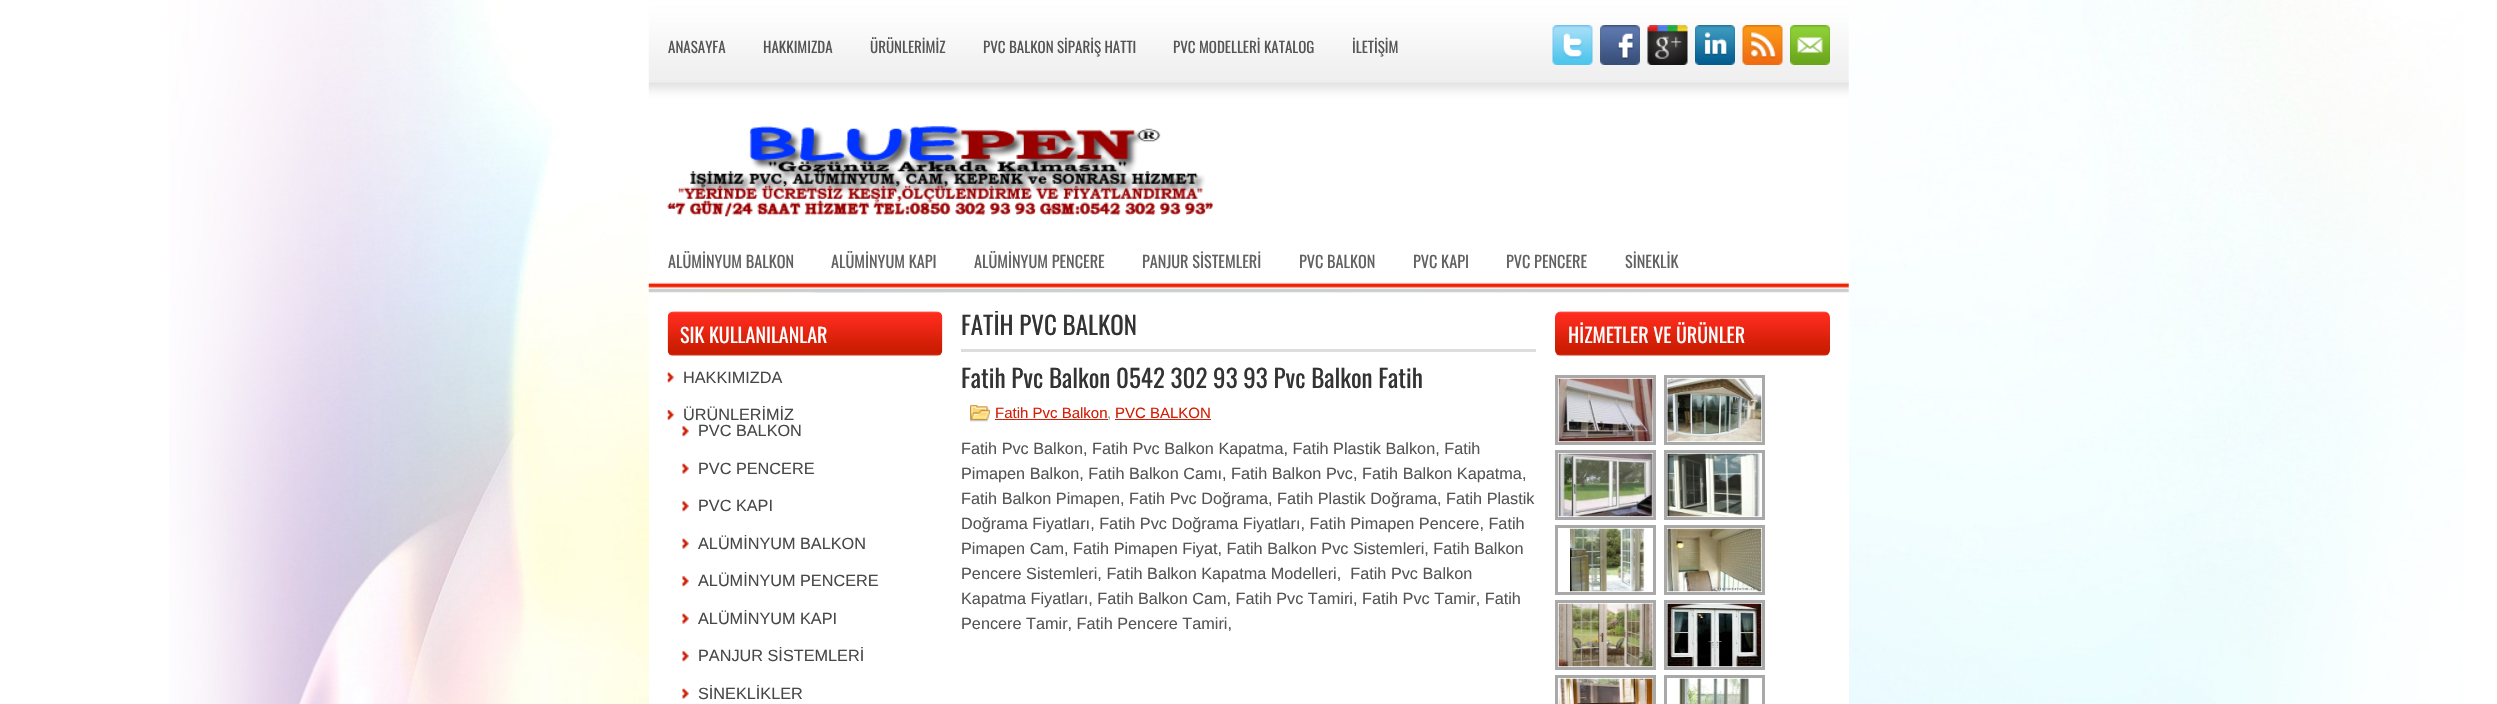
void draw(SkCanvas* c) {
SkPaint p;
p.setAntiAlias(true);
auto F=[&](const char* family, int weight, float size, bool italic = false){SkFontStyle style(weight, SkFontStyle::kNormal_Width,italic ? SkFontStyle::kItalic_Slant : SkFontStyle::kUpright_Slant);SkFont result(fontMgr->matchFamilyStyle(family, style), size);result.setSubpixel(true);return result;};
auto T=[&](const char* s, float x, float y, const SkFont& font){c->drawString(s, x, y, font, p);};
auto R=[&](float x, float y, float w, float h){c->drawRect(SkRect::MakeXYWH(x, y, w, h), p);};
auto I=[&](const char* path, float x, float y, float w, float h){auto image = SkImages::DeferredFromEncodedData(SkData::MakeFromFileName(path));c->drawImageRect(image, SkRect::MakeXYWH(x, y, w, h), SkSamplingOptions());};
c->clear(0xffffffff);
I("1.png",169,0,2296,704);
I("2.png",648,0,1201,248);
auto f1 = F("Oswald",400,15);
p.setColor(0xff555555);
T("ANASAYFA",668,53,f1);
T("HAKKIMIZDA",763,53,f1);
T("ÜRÜNLERİMİZ",870,53,f1);
T("PVC BALKON SİPARİŞ HATTI",983,53,f1);
T("PVC MODELLERİ KATALOG",1173,53,f1);
T("İLETİŞİM",1352,53,f1);
I("3.png",1552,25,41,40);
I("4.png",1600,25,40,40);
I("5.png",1647,25,41,40);
I("6.png",1695,25,40,40);
I("7.png",1742,25,41,40);
I("8.png",1790,25,40,40);
I("9.png",667,126,546,91);
I("10.png",648,247,1201,46);
auto f2 = F("Oswald",400,16.25);
p.setColor(0xff616161);
T("ALÜMİNYUM BALKON",668,268,f2);
T("ALÜMİNYUM KAPI",831,268,f2);
T("ALÜMİNYUM PENCERE",974,268,f2);
T("PANJUR SİSTEMLERİ",1142,268,f2);
T("PVC BALKON",1299,268,f2);
T("PVC KAPI",1413,268,f2);
T("PVC PENCERE",1506,268,f2);
T("SİNEKLİK",1625,268,f2);
p.setColor(0xffffffff);
R(649,293,1200,411);
I("11.png",667,311,276,46);
auto f3 = F("Oswald",400,20);
T("SIK KULLANILANLAR",680,343,f3);
I("12.png",667,372,7,11);
auto f4 = F("Liberation Sans",400,16.25);
p.setColor(0xff494848);
T("HAKKIMIZDA",683,383,f4);
I("13.png",667,410,7,10);
T("ÜRÜNLERİMİZ",683,420,f4);
I("14.png",682,426,7,11);
T("PVC BALKON",698,436,f4);
I("15.png",682,463,7,11);
T("PVC PENCERE",698,474,f4);
I("14.png",682,501,7,11);
T("PVC KAPI",698,511,f4);
I("15.png",682,538,7,11);
T("ALÜMİNYUM BALKON",698,549,f4);
I("14.png",682,576,7,11);
T("ALÜMİNYUM PENCERE",698,586,f4);
I("15.png",682,613,7,11);
T("ALÜMİNYUM KAPI",698,624,f4);
I("14.png",682,651,7,11);
T("PANJUR SİSTEMLERİ",698,661,f4);
I("15.png",682,688,7,11);
T("SİNEKLİKLER",698,699,f4);
p.setColor(0xffdddddd);
R(961,349,575,3);
c->save();
c->clipRect(SkRect::MakeXYWH(961,311,575,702));
auto f5 = F("Oswald",400,25);
p.setColor(0xff333333);
T("FATİH PVC BALKON",961,335,f5);
c->restore();
T("Fatih Pvc Balkon 0542 302 93 93 Pvc Balkon Fatih",961,388,f5);
I("16.png",970,404,20,18);
auto f6 = F("Liberation Sans",400,15);
p.setColor(0xffd31f06);
T("Fatih Pvc Balkon",995,418,f6);
p.setColor(0xff999999);
T(",",1107,418,f6);
p.setColor(0xffd31f06);
R(995,419,113,1);
R(1115,419,96,1);
T("PVC BALKON",1115,418,f6);
p.setColor(0xff555555);
T("Fatih Pvc Balkon, Fatih Pvc Balkon Kapatma, Fatih Plastik Balkon, Fatih",961,454,f4);
T("Pimapen Balkon, Fatih Balkon Camı, Fatih Balkon Pvc, Fatih Balkon Kapatma,",961,479,f4);
T("Fatih Balkon Pimapen, Fatih Pvc Doğrama, Fatih Plastik Doğrama, Fatih Plastik",961,504,f4);
T("Doğrama Fiyatları, Fatih Pvc Doğrama Fiyatları, Fatih Pimapen Pencere, Fatih",961,529,f4);
T("Pimapen Cam, Fatih Pimapen Fiyat, Fatih Balkon Pvc Sistemleri, Fatih Balkon",961,554,f4);
T("Pencere Sistemleri, Fatih Balkon Kapatma Modelleri,  Fatih Pvc Balkon",961,579,f4);
T("Kapatma Fiyatları, Fatih Balkon Cam, Fatih Pvc Tamiri, Fatih Pvc Tamir, Fatih",961,604,f4);
T("Pencere Tamir, Fatih Pencere Tamiri,",961,629,f4);
I("17.png",1555,311,275,46);
p.setColor(0xffffffff);
T("HİZMETLER VE ÜRÜNLER",1568,343,f3);
p.setStroke(true);
p.setStrokeWidth(3);
p.setColor(0xffa9a9a9);
c->drawRect(SkRect::MakeXYWH(1556.5,376.5,98,67),p);
c->drawRect(SkRect::MakeXYWH(1665.5,376.5,98,67),p);
I("18.png",1558,378,95,64);
I("19.png",1667,378,95,64);
c->drawRect(SkRect::MakeXYWH(1556.5,451.5,98,67),p);
c->drawRect(SkRect::MakeXYWH(1665.5,451.5,98,67),p);
I("20.png",1558,453,95,64);
I("21.png",1667,453,93,64);
c->drawRect(SkRect::MakeXYWH(1556.5,526.5,98,67),p);
c->drawRect(SkRect::MakeXYWH(1665.5,526.5,98,67),p);
I("22.png",1569,528,77,64);
I("23.png",1667,528,95,64);
c->drawRect(SkRect::MakeXYWH(1556.5,601.5,98,67),p);
c->drawRect(SkRect::MakeXYWH(1665.5,601.5,98,67),p);
I("24.png",1558,603,95,64);
I("25.png",1667,603,95,64);
c->drawRect(SkRect::MakeXYWH(1556.5,676.5,98,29),p);
c->drawRect(SkRect::MakeXYWH(1665.5,676.5,98,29),p);
I("26.png",1558,678,95,26);
I("27.png",1678,678,72,26);
}
